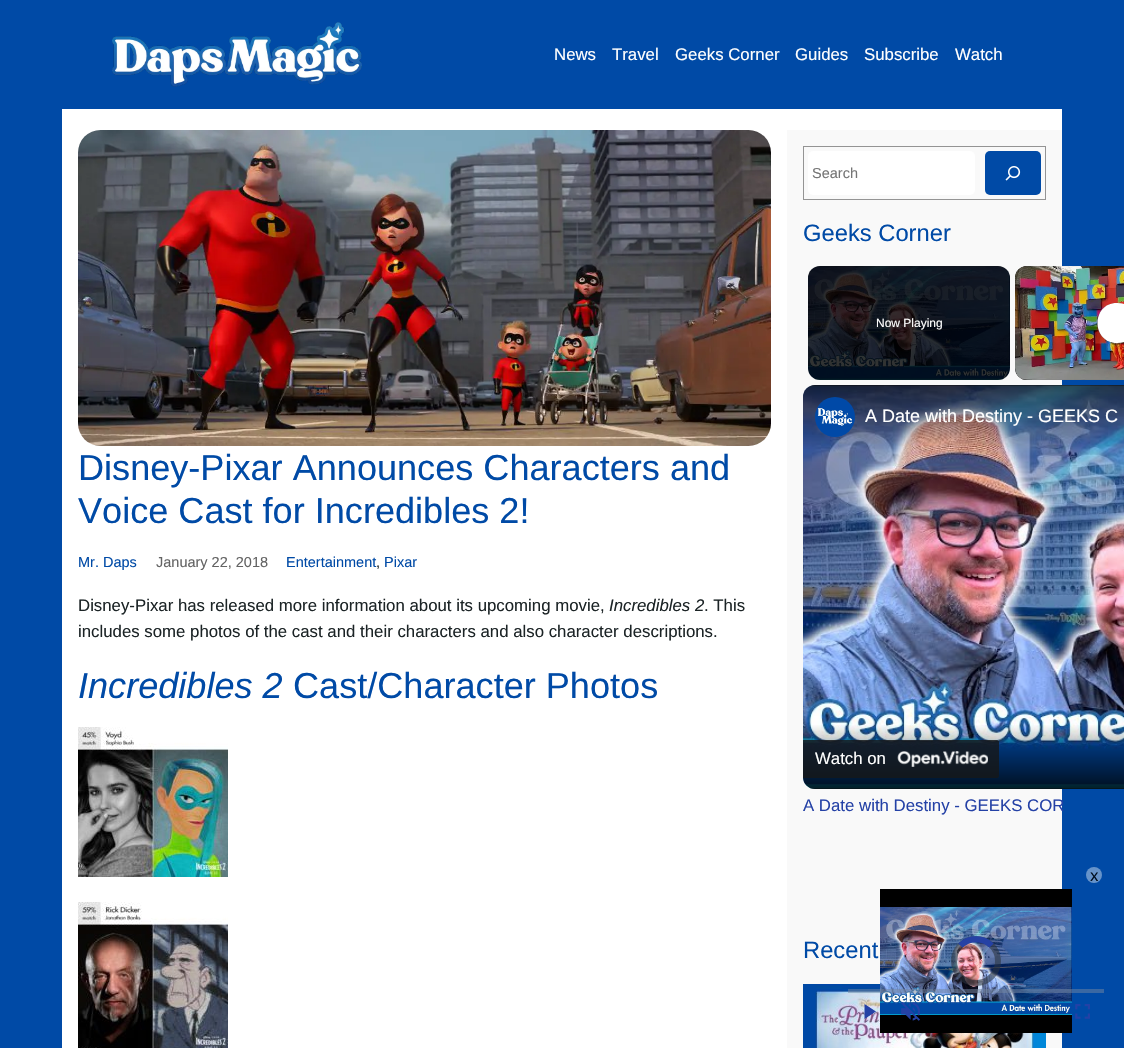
void draw(SkCanvas* c) {
SkPaint p;
p.setAntiAlias(true);
auto F=[&](const char* family, int weight, float size, bool italic = false){SkFontStyle style(weight, SkFontStyle::kNormal_Width,italic ? SkFontStyle::kItalic_Slant : SkFontStyle::kUpright_Slant);SkFont result(fontMgr->matchFamilyStyle(family, style), size);result.setSubpixel(true);return result;};
auto T=[&](const char* s, float x, float y, const SkFont& font){c->drawString(s, x, y, font, p);};
auto R=[&](float x, float y, float w, float h){c->drawRect(SkRect::MakeXYWH(x, y, w, h), p);};
auto Q=[&](float x, float y, float w, float h, float radius){c->drawRoundRect(SkRect::MakeXYWH(x, y, w, h), radius, radius, p);};
auto I=[&](const char* path, float x, float y, float w, float h){auto image = SkImages::DeferredFromEncodedData(SkData::MakeFromFileName(path));c->drawImageRect(image, SkRect::MakeXYWH(x, y, w, h), SkSamplingOptions());};
auto P=[&](const char* data, bool evenOdd = false){SkPath result = *SkParsePath::FromSVGString(data);if (evenOdd) result.setFillType(SkPathFillType::kEvenOdd);return result;};
c->clear(0xff004aa6);
I("1.png",112,22,250,65);
auto f1 = F("Liberation Sans",400,16.8);
p.setColor(0xffffffff);
T("News",554,60,f1);
T("Travel",612,60,f1);
T("Geeks Corner",675,60,f1);
T("Guides",795,60,f1);
T("Subscribe",864,60,f1);
T("Watch",955,60,f1);
R(62,109,1000,939);
I("2.png",78,130,693,316);
auto f2 = F("Liberation Sans",400,36.1);
p.setColor(0xff004aa6);
T("Disney-Pixar Announces Characters and",78,480,f2);
T("Voice Cast for Incredibles 2!",78,523,f2);
auto f3 = F("Liberation Sans",400,14.5);
T("Mr. Daps",78,567,f3);
p.setColor(0xff636363);
T("January 22, 2018",156,567,f3);
p.setColor(0xff004aa6);
T("Entertainment",286,567,f3);
p.setColor(0xff1c2426);
T(",",376,567,f3);
p.setColor(0xff004aa6);
T("Pixar",384,567,f3);
p.setColor(0xff1c2426);
T("Disney-Pixar has released more information about its upcoming movie,",78,611,f1);
auto f4 = F("Liberation Sans",400,16.8,true);
T("Incredibles 2",609,611,f4);
T(". This",704,611,f1);
T("includes some photos of the cast and their characters and also character descriptions.",78,637,f1);
auto f5 = F("Liberation Sans",400,36.1,true);
p.setColor(0xff004aa6);
T("Incredibles 2",78,698,f5);
T("Cast/Character Photos",293,698,f2);
I("3.png",78,727,150,150);
I("4.png",78,902,150,146);
p.setColor(0xfff9f9f9);
R(787,130,275,918);
p.setStroke(true);
p.setStrokeWidth(1);
p.setColor(0xff949494);
c->drawRect(SkRect::MakeXYWH(803.5,146.5,242,53),p);
p.setStroke(false);
p.setColor(0xffffffff);
Q(808,151,167,44,5);
p.setColor(0xff757575);
T("Search",812,178,f3);
p.setColor(0xff004aa6);
Q(985,151,56,44,5);
I("5.png",1005,166,16,15);
auto f6 = F("Liberation Sans",400,23.75);
T("Geeks Corner",803,241,f6);
p.setColor(0xff000000);
Q(808,266,202,114,12);
I("6.png",808,266,202,114);
auto f7 = F("Liberation Sans",400,12);
p.setColor(0xffffffff);
T("Now Playing",876,327,f7);
p.setColor(0xff000000);
Q(1015,266,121,114,12);
I("7.png",1015,266,109,114);
p.setColor(0xb32b333f);
c->drawCircle(1117,323,20,p);
p.setColor(0xffffffff);
c->drawPath(P("M1117 303c-26 0-26 40 0 40c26 0 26-40 0-40z"),p);
p.setColor(0xff6693ca);
c->drawCircle(1094,875,8,p);
auto f8 = F("Noto Sans",400,16);
p.setColor(0xff000f21);
T("x",1090,881,f8);
I("14.png",803,984,243,64);
I("8.png",880,889,192,144);
p.setStroke(true);
p.setStrokeWidth(6);
p.setColor(0x962b333f);
c->drawCircle(976,961,22,p);
p.setColor(0xd92441a6);
c->drawPath(P("M960.5 945.5c8.5-8.5 22.5-8.5 31 0"),p);
c->drawPath(P("M960.5 945.5c8.5-8.5 22.5-8.5 31 0"),p);
p.setStroke(false);
p.setColor(0x8073859f);
R(848,989,256,4);
p.setColor(0xff2441a6);
c->drawPath(P("M864.5 1004v15l11.5-7.5z"),p);
I("9.png",901,1002,19,19);
I("10.png",1075,1004,15,15);
I("11.png",803,385,321,404);
{
const SkColor colors[] = {0x99000000,0x00000000,0x00000000,0xcc000000};
const float stops[] = {0,.16,.84,1};
const SkPoint ends[] = {{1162,385}, {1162,789}};
p.setShader(SkGradientShader::MakeLinear(ends, colors, stops, 4, SkTileMode::kClamp));
p.setAlpha(255);
}
Q(803,385,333,404,12);
I("12.png",815,397,40,40);
auto f9 = F("Liberation Sans",400,18);
p.setShader(nullptr);
p.setColor(0xffffffff);
T("A Date with Destiny - GEEKS C",865,422,f9);
p.setColor(0xcc171717);
c->drawPath(P("M803 740h194c1 0 2 1 2 2v34c0 1-1 2-2 2h-194z"),p);
p.setColor(0xffffffff);
T("Watch on",815,764,f1);
I("13.png",897,751,91,16);
p.setColor(0xff2441a6);
T("A Date with Destiny - GEEKS COR",803,811,f1);
p.setColor(0xff004aa6);
T("Recent",803,958,f6);
}
